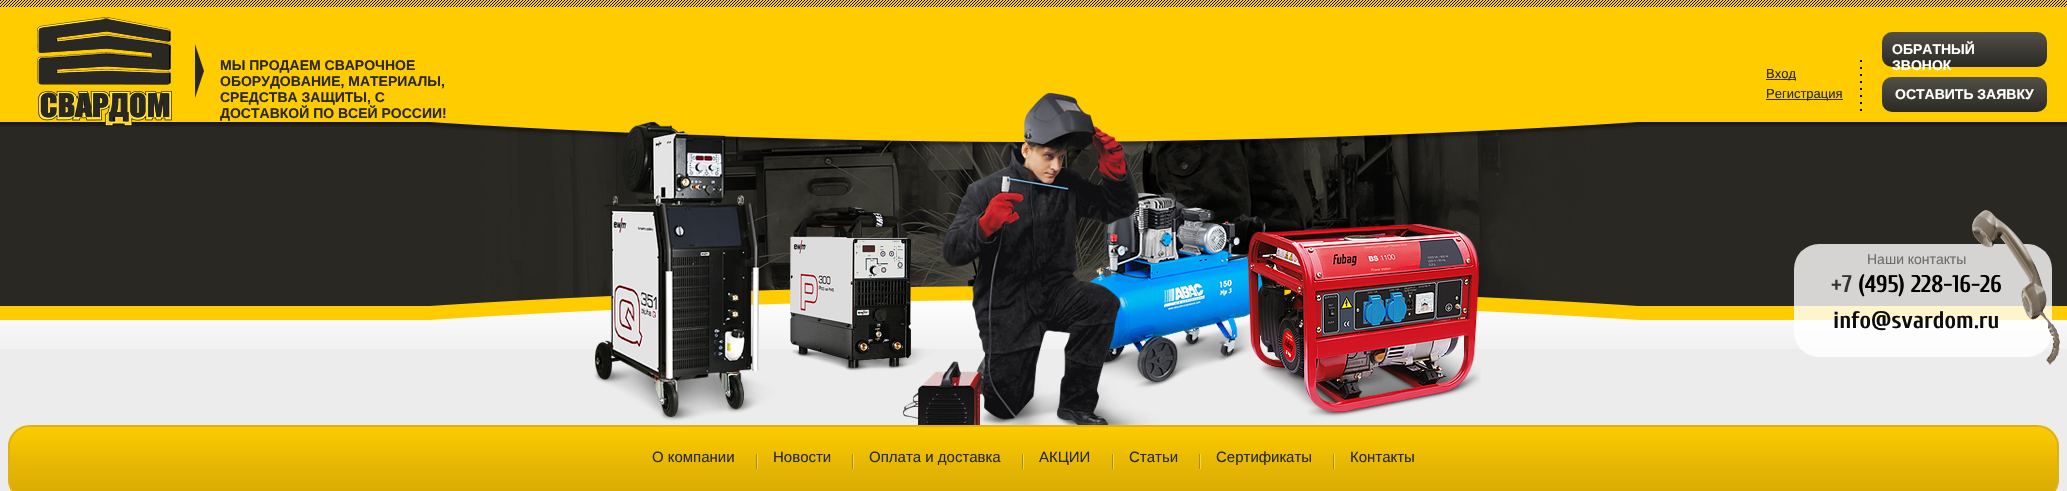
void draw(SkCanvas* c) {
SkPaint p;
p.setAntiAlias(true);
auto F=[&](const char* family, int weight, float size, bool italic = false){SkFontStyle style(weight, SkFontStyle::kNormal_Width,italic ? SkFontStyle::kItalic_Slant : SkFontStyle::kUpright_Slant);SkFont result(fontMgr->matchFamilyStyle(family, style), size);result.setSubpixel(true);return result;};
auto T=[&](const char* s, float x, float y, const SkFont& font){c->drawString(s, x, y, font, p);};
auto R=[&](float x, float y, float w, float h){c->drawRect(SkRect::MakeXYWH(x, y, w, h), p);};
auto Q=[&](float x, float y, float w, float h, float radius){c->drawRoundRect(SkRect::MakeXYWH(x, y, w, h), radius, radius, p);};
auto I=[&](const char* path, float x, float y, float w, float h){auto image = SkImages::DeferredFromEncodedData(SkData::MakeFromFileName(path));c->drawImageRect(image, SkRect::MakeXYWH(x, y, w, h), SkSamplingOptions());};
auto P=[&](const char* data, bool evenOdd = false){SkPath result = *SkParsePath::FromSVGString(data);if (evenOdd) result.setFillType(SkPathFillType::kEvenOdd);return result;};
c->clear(0xffececec);
I("1.png",0,320,2067,29);
p.setColor(0xffffcc00);
R(0,7,2067,313);
I("2.png",0,0,2067,7);
p.setColor(0xff292823);
R(0,127,2067,179);
I("3.png",0,122,2067,5);
I("4.png",430,122,1208,198);
I("5.png",594,93,887,332);
I("6.png",195,44,9,54);
I("7.png",37,17,135,109);
{
const SkColor colors[] = {0xff525046,0xff2a2924};
const float stops[] = {0,1};
const SkPoint ends[] = {{1965,32}, {1965,67}};
p.setShader(SkGradientShader::MakeLinear(ends, colors, stops, 2, SkTileMode::kClamp));
p.setAlpha(255);
}
Q(1882,32,165,35,10);
auto f1 = F("Liberation Sans",700,14);
p.setShader(nullptr);
p.setColor(0xffffffff);
T("ОБРАТНЫЙ",1892,54,f1);
T("ЗВОНОК",1892,70,f1);
p.setColor(0xff292823);
T("МЫ ПРОДАЕМ СВАРОЧНОЕ",220,70,f1);
T("ОБОРУДОВАНИЕ, МАТЕРИАЛЫ,",220,86,f1);
T("СРЕДСТВА ЗАЩИТЫ, С",220,102,f1);
T("ДОСТАВКОЙ ПО ВСЕЙ РОССИИ!",220,118,f1);
I("8.png",1860,60,2,51);
R(1766,79,30,1);
auto f2 = F("Liberation Sans",400,13);
T("Вход",1766,78,f2);
R(1766,99,77,1);
T("Регистрация",1766,98,f2);
{
const SkColor colors[] = {0xff525046,0xff2a2924};
const float stops[] = {0,1};
const SkPoint ends[] = {{1965,77}, {1965,112}};
p.setShader(SkGradientShader::MakeLinear(ends, colors, stops, 2, SkTileMode::kClamp));
p.setAlpha(255);
}
Q(1882,77,165,35,10);
p.setShader(nullptr);
p.setColor(0xffffffff);
T("ОСТАВИТЬ ЗАЯВКУ",1895,99,f1);
I("9.png",1794,244,258,113);
auto f3 = F("Liberation Sans",400,14);
p.setColor(0xff6c6c6c);
T("Наши контакты",1867,264,f3);
auto f4 = F("Cuprum",700,24);
p.setColor(0xff333333);
T("+7",1831,292,f4);
I("10.png",1972,210,88,155);
p.setColor(0xff000000);
T("(495) 228-16-26",1858,292,f4);
p.setColor(0xff0d0d0d);
T("info@svardom.ru",1833,328,f4);
c->save();
c->clipPath(P("M30 425h2007c12 0 22 10 22 22v32c0 12-10 22-22 22h-2007c-12 0-22-10-22-22v-32c0-12 10-22 22-22z"),true);
{
const SkColor colors[] = {0xfffecb00,0xffe7b803,0xffd6a906};
const float stops[] = {0,.5,1};
const SkPoint ends[] = {{1034,427}, {1034,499}};
p.setShader(SkGradientShader::MakeLinear(ends, colors, stops, 3, SkTileMode::kClamp));
p.setAlpha(255);
}
R(8,427,2051,64);
c->restore();
p.setStroke(true);
p.setStrokeWidth(2);
p.setShader(nullptr);
p.setColor(0xffdcb216);
c->drawRoundRect(SkRect::MakeXYWH(9,426,2049,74),21,21,p);
auto f5 = F("Liberation Sans",400,15);
p.setStroke(false);
p.setColor(0xff292823);
T("О компании",652,462,f5);
I("11.png",756,454,2,15);
T("Новости",773,462,f5);
I("11.png",852,454,2,15);
T("Оплата и доставка",869,462,f5);
I("11.png",1022,454,2,15);
T("АКЦИИ",1039,462,f5);
I("11.png",1112,454,2,15);
T("Статьи",1129,462,f5);
I("11.png",1199,454,2,15);
T("Сертификаты",1216,462,f5);
I("11.png",1333,454,2,15);
T("Контакты",1350,462,f5);
}
